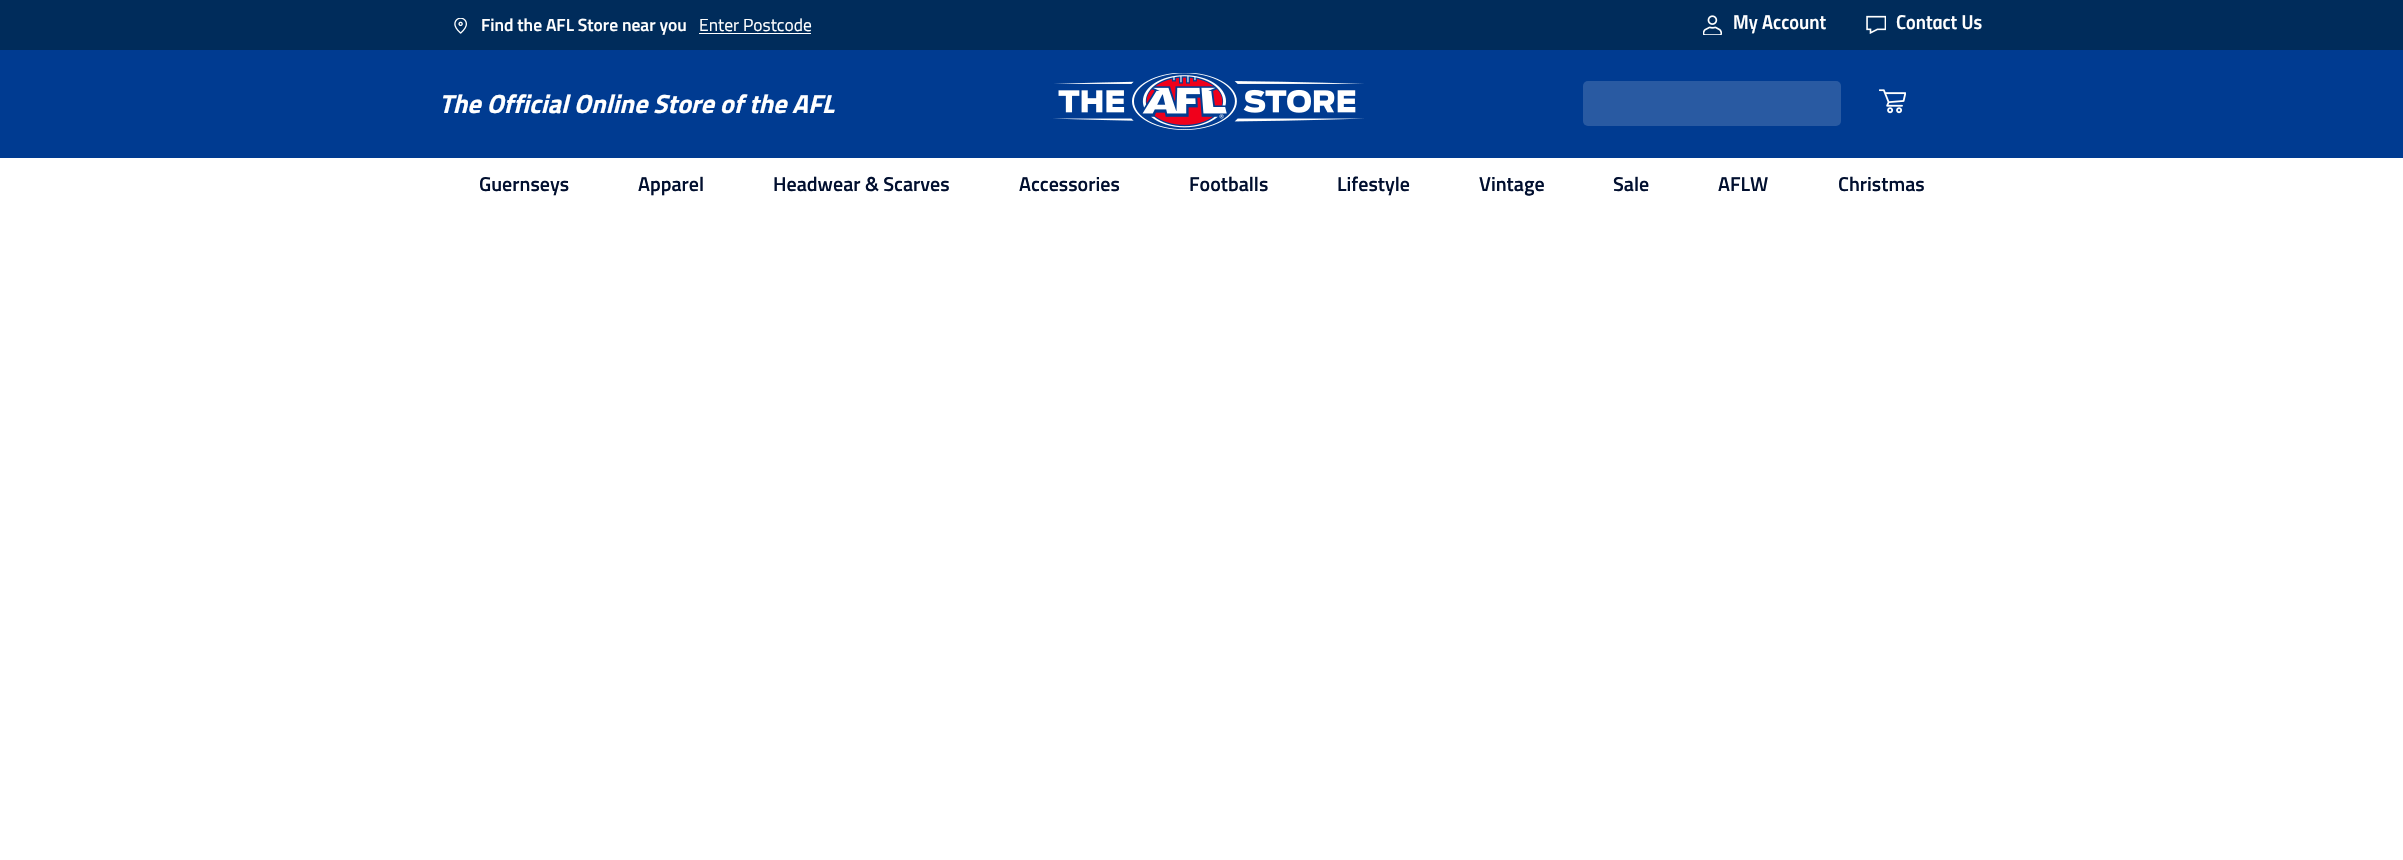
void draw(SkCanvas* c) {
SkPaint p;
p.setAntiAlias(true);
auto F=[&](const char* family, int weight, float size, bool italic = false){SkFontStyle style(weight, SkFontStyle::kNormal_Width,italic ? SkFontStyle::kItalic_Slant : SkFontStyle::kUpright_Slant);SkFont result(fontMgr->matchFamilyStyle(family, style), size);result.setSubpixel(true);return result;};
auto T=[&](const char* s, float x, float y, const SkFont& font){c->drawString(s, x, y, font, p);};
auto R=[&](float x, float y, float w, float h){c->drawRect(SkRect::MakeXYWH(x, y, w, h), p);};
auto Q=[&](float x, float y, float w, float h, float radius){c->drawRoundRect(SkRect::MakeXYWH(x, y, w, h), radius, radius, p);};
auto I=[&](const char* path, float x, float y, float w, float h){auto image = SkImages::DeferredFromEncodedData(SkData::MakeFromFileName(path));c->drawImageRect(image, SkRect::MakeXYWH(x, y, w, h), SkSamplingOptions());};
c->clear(0xffffffff);
p.setColor(0xff002c5b);
R(0,0,2403,50);
I("1.png",454,18,13,16);
auto f1 = F("Titillium Web",600,17.5);
p.setColor(0xffffffff);
T("Find the AFL Store near you",481,31,f1);
auto f2 = F("Titillium Web",400,17.5);
T("Enter Postcode",699,31,f2);
R(699,33,112,1);
I("2.png",1703,15,19,20);
auto f3 = F("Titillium",600,20,true);
T("My Account",1733,29,f3);
I("3.png",1866,15,20,19);
T("Contact Us",1896,29,f3);
p.setColor(0xff003b91);
R(0,50,2403,108);
auto f4 = F("Titillium Web",700,26.25,true);
p.setColor(0xffffffff);
T("The Official Online Store of the AFL",439,113,f4);
I("4.png",1053,73,311,57);
p.setColor(0xff295aa2);
Q(1583,81,258,45,5);
I("5.png",1879,89,27,25);
auto f5 = F("Titillium Web",600,20);
p.setColor(0xff010f2f);
T("Guernseys",479,191,f5);
T("Apparel",638,191,f5);
T("Headwear & Scarves",773,191,f5);
T("Accessories",1019,191,f5);
T("Footballs",1189,191,f5);
T("Lifestyle",1337,191,f5);
T("Vintage",1479,191,f5);
T("Sale",1613,191,f5);
T("AFLW",1718,191,f5);
T("Christmas",1838,191,f5);
}
